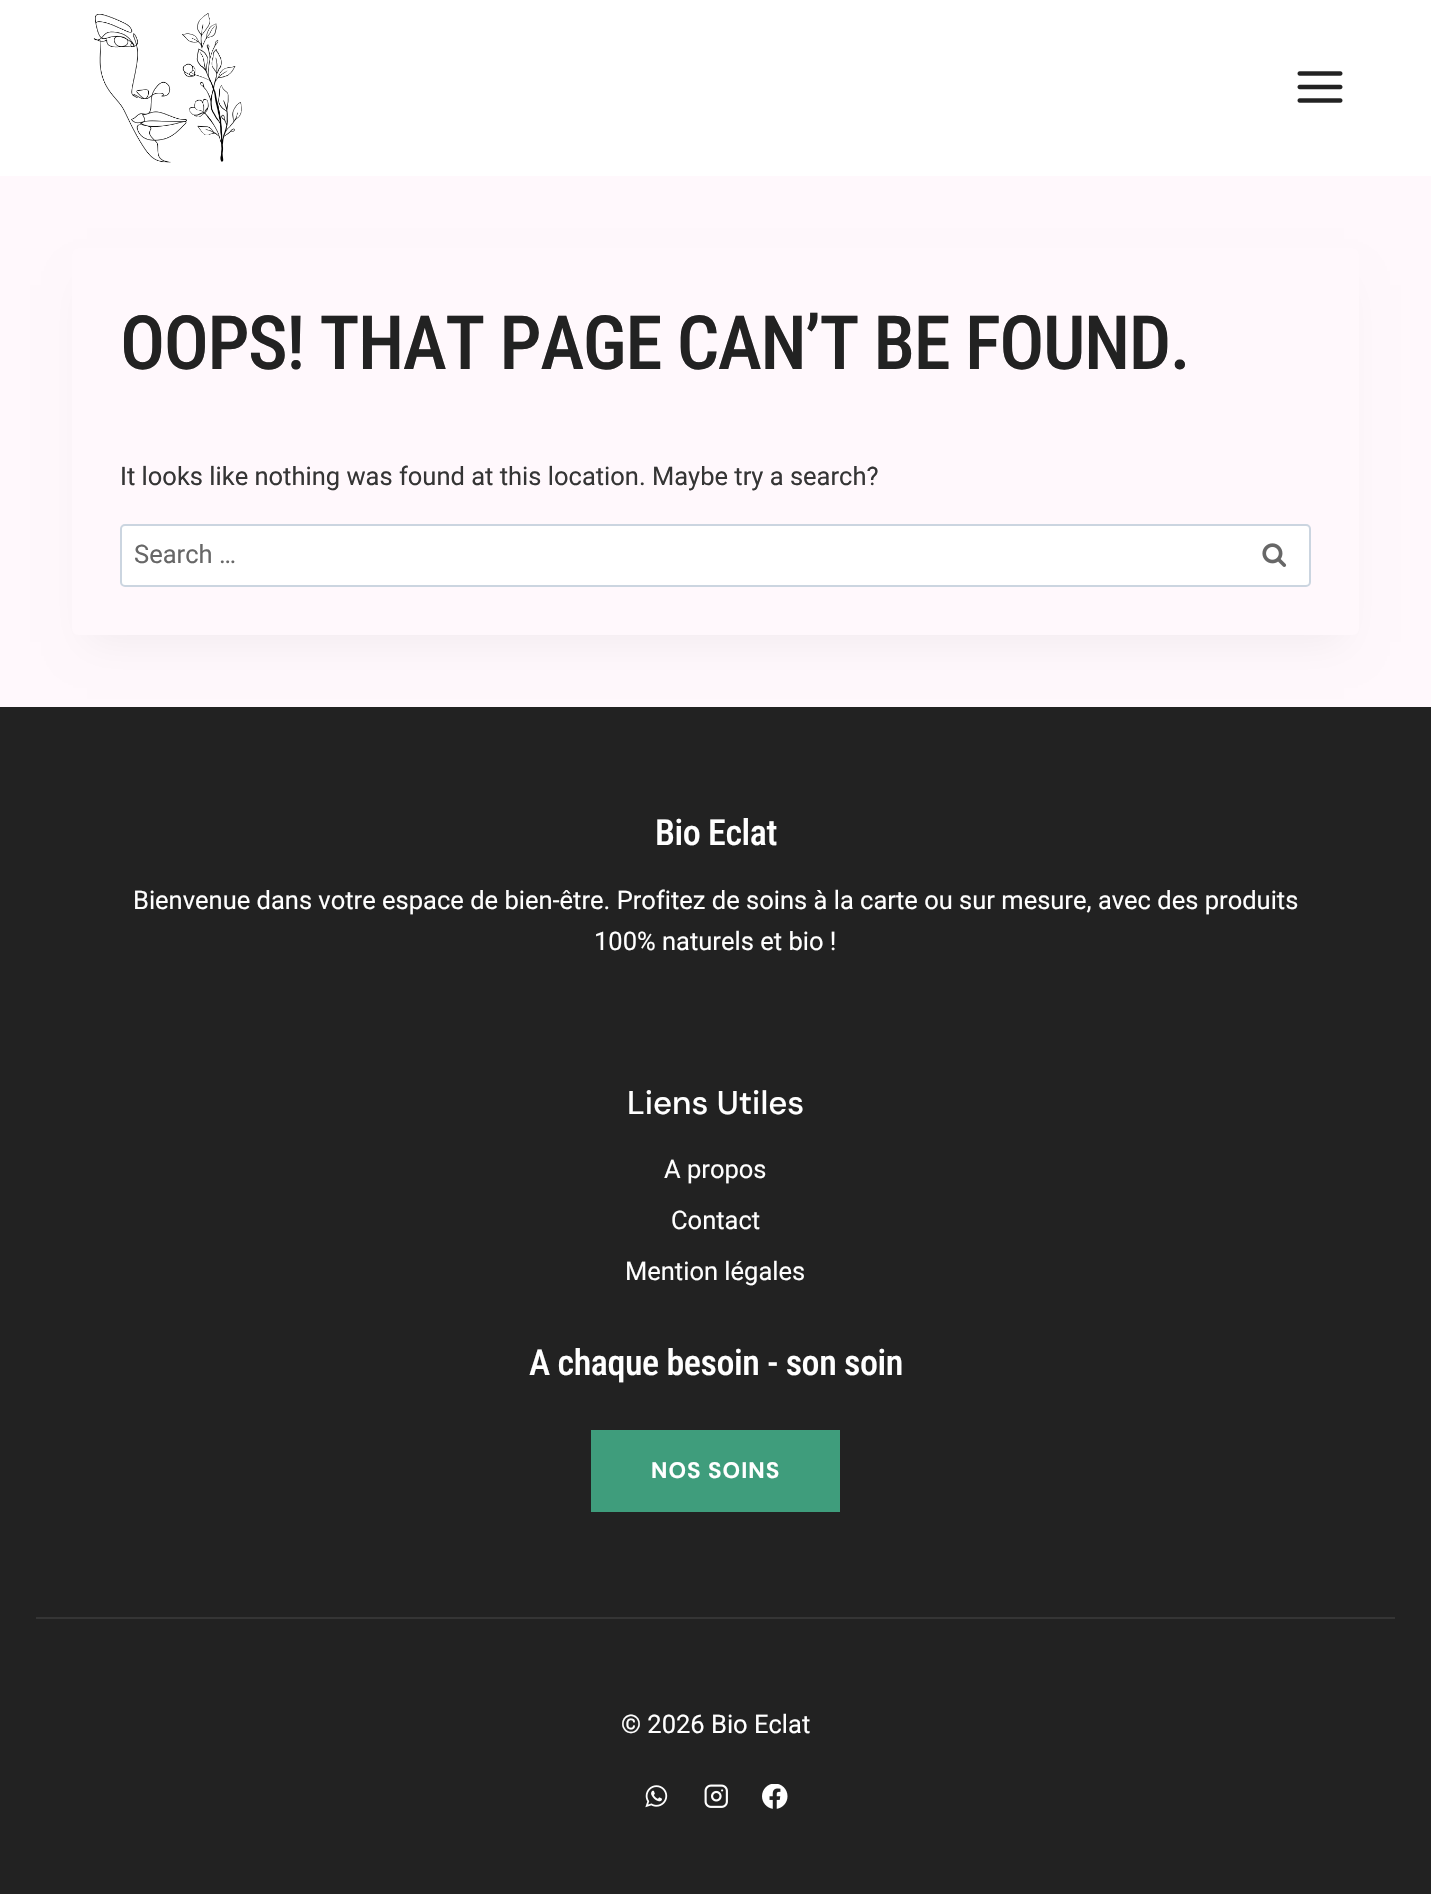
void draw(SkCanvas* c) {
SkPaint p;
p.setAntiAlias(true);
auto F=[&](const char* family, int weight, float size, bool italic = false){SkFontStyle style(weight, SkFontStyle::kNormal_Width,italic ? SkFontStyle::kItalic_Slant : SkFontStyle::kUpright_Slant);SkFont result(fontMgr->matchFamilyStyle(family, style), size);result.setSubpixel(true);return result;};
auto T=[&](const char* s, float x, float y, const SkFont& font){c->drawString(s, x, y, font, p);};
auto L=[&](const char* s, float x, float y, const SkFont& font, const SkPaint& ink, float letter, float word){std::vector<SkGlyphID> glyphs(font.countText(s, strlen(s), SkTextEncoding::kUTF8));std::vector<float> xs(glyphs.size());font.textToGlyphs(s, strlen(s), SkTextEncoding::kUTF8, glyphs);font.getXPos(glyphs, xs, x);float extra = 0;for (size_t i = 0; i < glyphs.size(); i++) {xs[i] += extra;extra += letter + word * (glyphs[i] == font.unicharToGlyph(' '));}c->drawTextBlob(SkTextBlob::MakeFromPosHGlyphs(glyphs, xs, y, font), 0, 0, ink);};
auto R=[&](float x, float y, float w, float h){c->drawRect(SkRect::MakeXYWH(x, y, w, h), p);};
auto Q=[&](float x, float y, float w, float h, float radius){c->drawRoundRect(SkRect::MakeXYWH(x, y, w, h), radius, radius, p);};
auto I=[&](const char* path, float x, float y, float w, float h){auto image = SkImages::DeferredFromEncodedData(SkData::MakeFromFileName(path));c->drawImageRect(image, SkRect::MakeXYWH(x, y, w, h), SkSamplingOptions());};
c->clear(0xfffff8fc);
p.setColor(0xffffffff);
R(0,0,1431,176);
I("1.png",93,13,150,150);
I("2.png",1297,71,46,32);
p.setColor(0x0d000000);
p.setMaskFilter(SkMaskFilter::MakeBlur(kNormal_SkBlurStyle, 19));
c->drawRect(SkRect::MakeXYWH(87,285,1257,357),p);
p.setMaskFilter(nullptr);
p.setColor(0xfffff8fc);
Q(72,248,1287,387,6);
auto f1 = F("Roboto Condensed",500,75);
p.setColor(0xff222222);
L("OOPS! THAT PAGE CAN’T BE FOUND.",120,369,f1,p,-1.5,0);
auto f2 = F("Roboto",400,25.5);
p.setColor(0xff353535);
T("It looks like nothing was found at this location. Maybe try a search?",120,485,f2);
p.setColor(0xffffffff);
c->drawRoundRect(SkRect::MakeXYWH(121,525,1189,61),4,4,p);
p.setStroke(true);
p.setStrokeWidth(2);
p.setColor(0xffcbd5e0);
c->drawRoundRect(SkRect::MakeXYWH(121,525,1189,61),4,4,p);
p.setStroke(false);
p.setColor(0xff676767);
T("Search …",134,563,f2);
I("3.png",1262,543,25,24);
p.setColor(0xff222222);
R(0,707,1431,1187);
p.setColor(0xff353535);
R(36,1617,1359,2);
auto f3 = F("Roboto Condensed",500,36);
p.setColor(0xffffffff);
L("Bio Eclat",655,845,f3,p,-.45,0);
T("Bienvenue dans votre espace de bien-être. Profitez de soins à la carte ou sur mesure, avec des produits",133,909,f2);
T("100% naturels et bio !",594,950,f2);
auto f4 = F("DM Sans",500,33);
T("Liens Utiles",627,1114,f4);
T("A propos",664,1178,f2);
T("Contact",671,1229,f2);
T("Mention légales",625,1280,f2);
L("A chaque besoin - son soin",529,1375,f3,p,-.45,0);
p.setColor(0xff3f9d7c);
R(591,1430,249,82);
auto f5 = F("DM Sans",700,22.5);
p.setColor(0xffffffff);
L("NOS SOINS",651,1478,f5,p,1,0);
T("© 2026 Bio Eclat",621,1733,f2);
I("4.png",645,1785,23,23);
I("5.png",704,1784,24,24);
I("6.png",762,1784,26,25);
}
